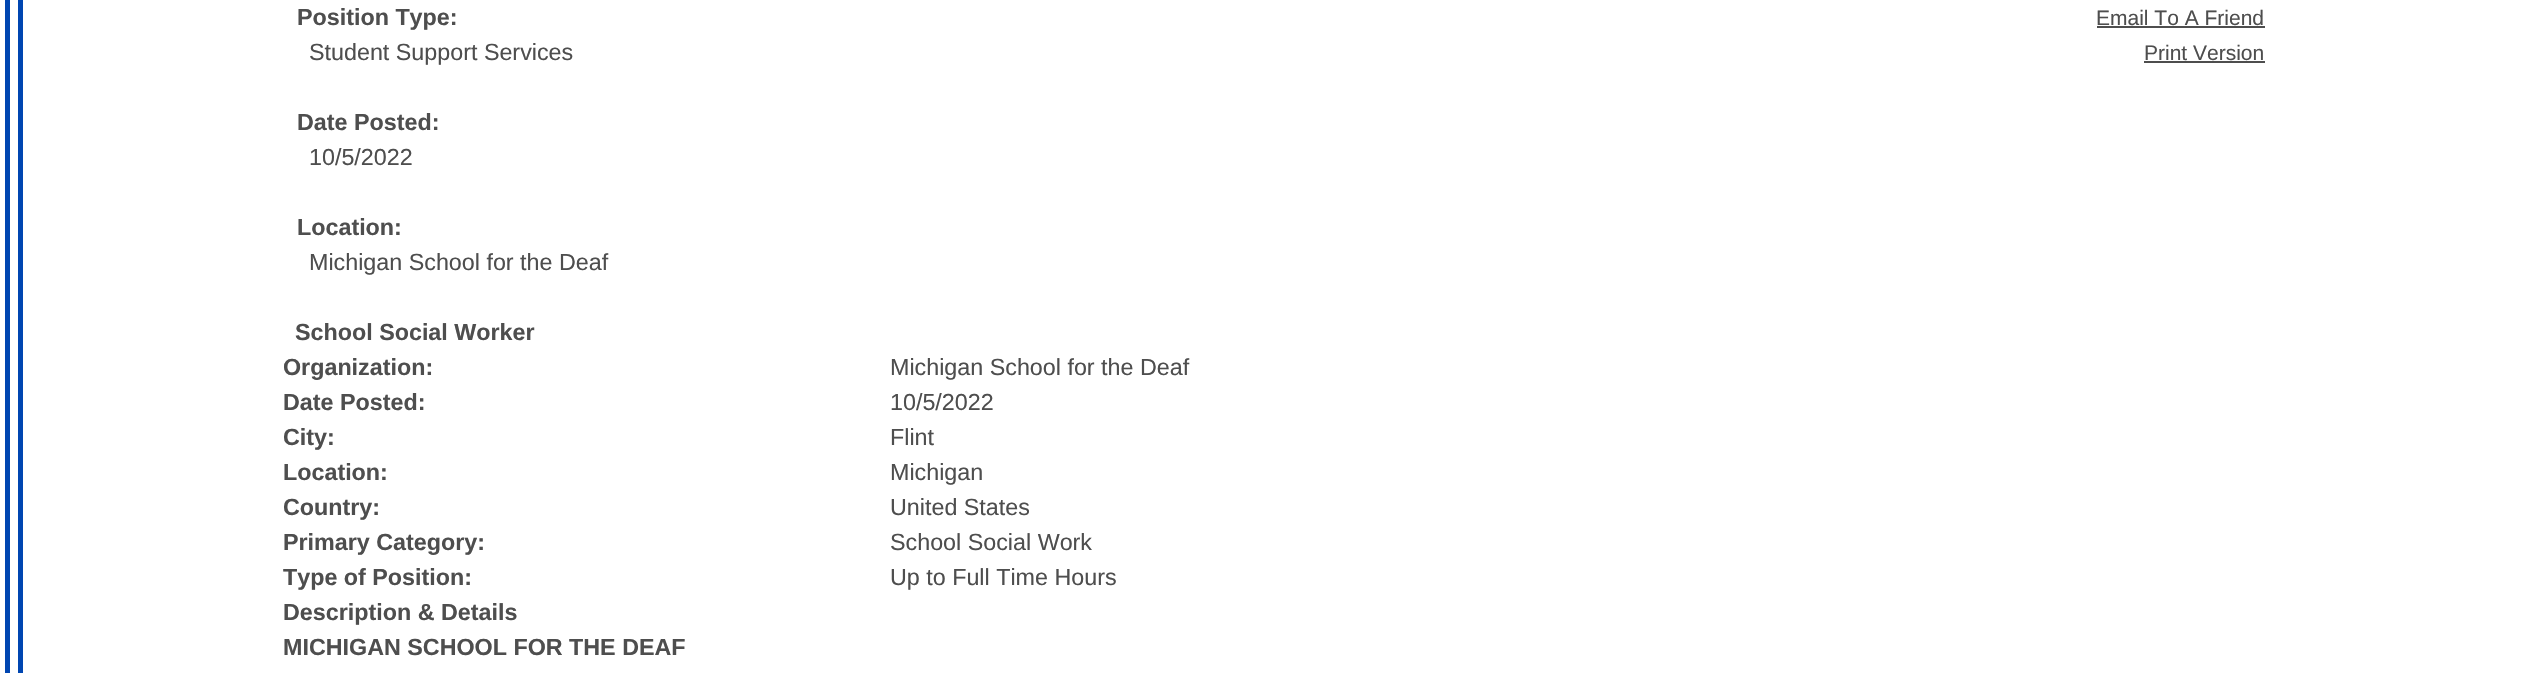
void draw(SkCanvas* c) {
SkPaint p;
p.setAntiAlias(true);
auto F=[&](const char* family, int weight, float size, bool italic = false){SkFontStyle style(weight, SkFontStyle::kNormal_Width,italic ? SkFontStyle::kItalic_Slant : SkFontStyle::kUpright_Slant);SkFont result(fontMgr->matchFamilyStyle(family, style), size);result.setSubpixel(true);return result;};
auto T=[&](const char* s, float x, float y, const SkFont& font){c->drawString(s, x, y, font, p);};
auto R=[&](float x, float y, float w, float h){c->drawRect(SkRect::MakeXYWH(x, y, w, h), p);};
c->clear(0xffffffff);
p.setColor(0xff0046b1);
R(5,0,5,673);
R(18,0,5,673);
auto f1 = F("Liberation Sans",700,23.3);
p.setColor(0xff4e4e4e);
T("Position Type:",297,25,f1);
auto f2 = F("Liberation Sans",400,23.3);
T("Student Support Services",309,60,f2);
auto f3 = F("Liberation Sans",400,21);
T("Email To A Friend",2096,25,f3);
R(2097,26,168,2);
T("Print Version",2144,60,f3);
R(2144,61,121,2);
T("Date Posted:",297,130,f1);
T("10/5/2022",309,165,f2);
T("Location:",297,235,f1);
T("Michigan School for the Deaf",309,270,f2);
T("School Social Worker",295,340,f1);
T("Organization:",283,375,f1);
T("Michigan School for the Deaf",890,375,f2);
T("Date Posted:",283,410,f1);
T("10/5/2022",890,410,f2);
T("City:",283,445,f1);
T("Flint",890,445,f2);
T("Location:",283,480,f1);
T("Michigan",890,480,f2);
T("Country:",283,515,f1);
T("United States",890,515,f2);
T("Primary Category:",283,550,f1);
T("School Social Work",890,550,f2);
T("Type of Position:",283,585,f1);
T("Up to Full Time Hours",890,585,f2);
T("Description & Details",283,620,f1);
T("MICHIGAN SCHOOL FOR THE DEAF",283,655,f1);
}
